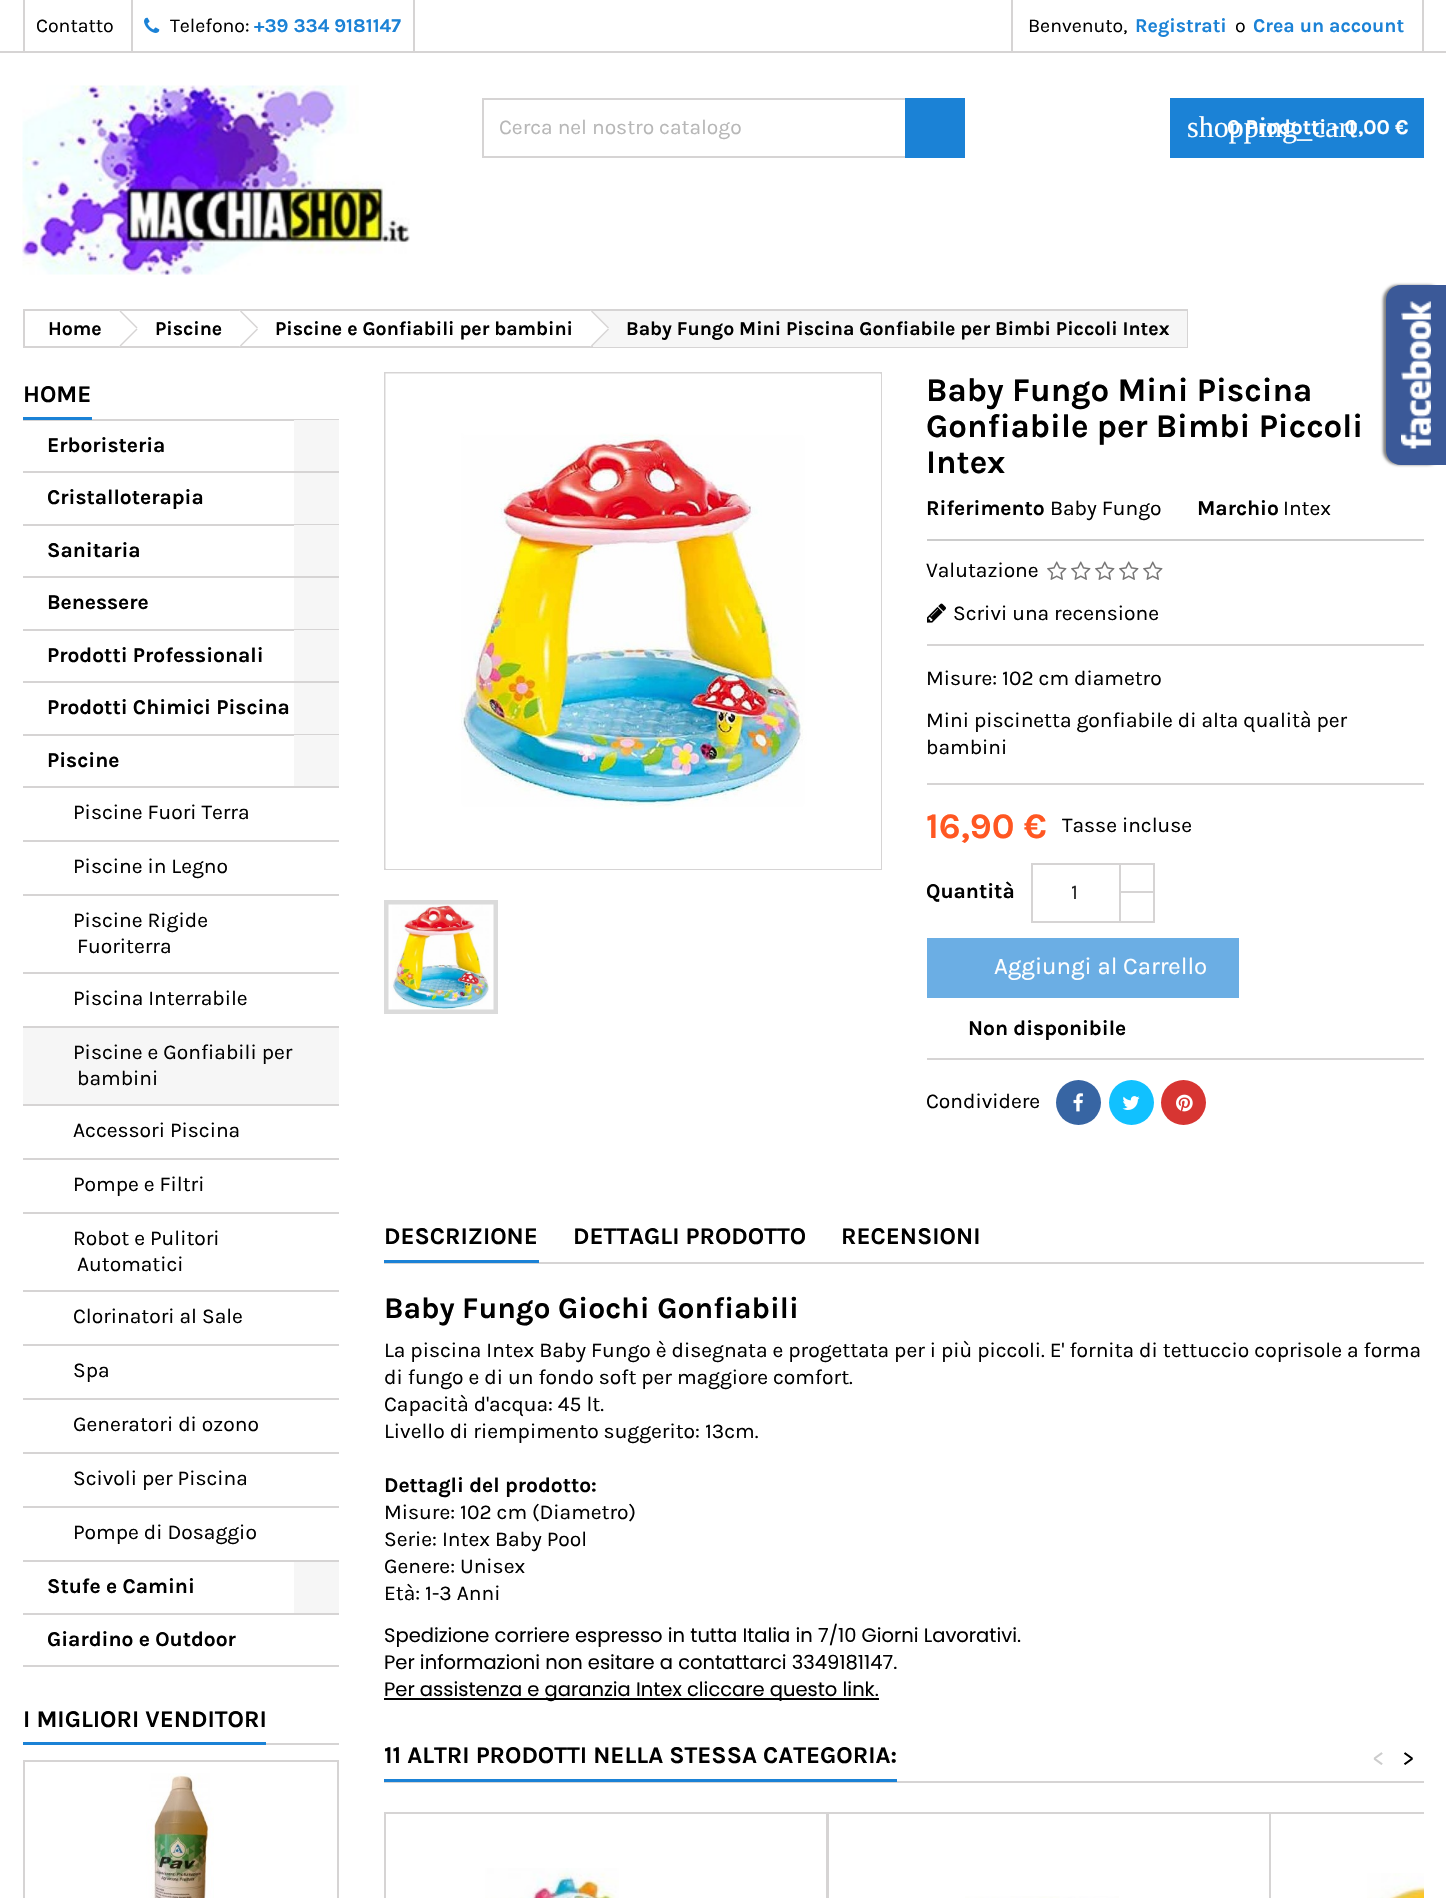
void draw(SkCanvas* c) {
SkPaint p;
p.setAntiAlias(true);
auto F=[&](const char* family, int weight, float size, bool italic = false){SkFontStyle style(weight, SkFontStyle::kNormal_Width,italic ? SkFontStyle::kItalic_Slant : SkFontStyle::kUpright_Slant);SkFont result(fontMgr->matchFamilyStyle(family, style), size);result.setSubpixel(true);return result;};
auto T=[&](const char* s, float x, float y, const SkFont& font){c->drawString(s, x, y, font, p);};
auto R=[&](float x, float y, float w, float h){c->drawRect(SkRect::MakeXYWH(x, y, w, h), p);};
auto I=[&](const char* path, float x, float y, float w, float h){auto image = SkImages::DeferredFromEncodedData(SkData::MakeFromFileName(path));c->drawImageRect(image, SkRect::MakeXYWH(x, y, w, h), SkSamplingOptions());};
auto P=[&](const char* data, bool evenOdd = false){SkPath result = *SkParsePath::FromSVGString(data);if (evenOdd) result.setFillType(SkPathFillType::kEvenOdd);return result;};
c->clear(0xffffffff);
p.setColor(0xffd6d4d4);
R(0,51,1446,2);
R(23,0,2,51);
auto f1 = F("Karla",400,19.5);
p.setColor(0xff000000);
T("Contatto",36,32,f1);
p.setColor(0xffd6d4d4);
R(413,0,2,51);
R(131,0,2,51);
I("1.png",144,17,16,16);
p.setColor(0xff000000);
T("Telefono:",170,32,f1);
auto f2 = F("Karla",700,19.5);
p.setColor(0xff1b82d6);
T("+39 334 9181147",254,32,f2);
p.setColor(0xffd6d4d4);
R(1422,0,2,51);
R(1011,0,2,51);
p.setColor(0xff000000);
T("Benvenuto,",1028,32,f1);
p.setColor(0xff1b82d6);
T("Registrati",1135,32,f2);
p.setColor(0xff000000);
T("o",1235,32,f1);
p.setColor(0xff1b82d6);
T("Crea un account",1253,32,f2);
I("2.png",22,85,388,190);
p.setStroke(true);
p.setStrokeWidth(2);
p.setColor(0xffd6d4d4);
c->drawRect(SkRect::MakeXYWH(483,99,481,58),p);
auto f3 = F("Karla",400,21);
p.setStroke(false);
p.setColor(0xffb7b7b7);
T("Cerca nel nostro catalogo",499,134,f3);
p.setColor(0xff1b82d6);
R(905,98,60,60);
R(1170,98,254,60);
auto f4 = F("Karla",700,21);
p.setColor(0xffffffff);
T("0 Prodotti - 0,00 €",1227,134,f4);
auto f5 = F("Liberation Serif",400,30);
T("shopping_cart",1187,137,f5);
p.setColor(0x80000000);
p.setMaskFilter(SkMaskFilter::MakeBlur(kNormal_SkBlurStyle, 1.5));
c->drawRoundRect(SkRect::MakeXYWH(1383,285,60,180),15,15,p);
p.setMaskFilter(nullptr);
p.setColor(0xff3b5998);
c->drawPath(P("M1401 285h45v180h-45c-8.5 0-15-6.5-15-15v-150c0-8.5 6.5-15 15-15z"),p);
I("3.png",1401,301,30,148);
p.setStroke(true);
p.setColor(0xffd6d4d4);
c->drawRect(SkRect::MakeXYWH(24,310,1163,37),p);
p.setStroke(false);
p.setColor(0xff000000);
T("Home",48,335,f2);
p.setColor(0xffffffff);
c->drawPath(P("M122 311.5l14.5 15c1.5 1 1.5 3 0 4l-14.5 15c-1.5 1-3.5 1-4.5 0l-15-15c-1-1-1-3 0-4l15-15c1-1 3-1 4.5 0z"),p);
p.setColor(0xffd6d4d4);
c->drawPath(P("M120.5 310.5l17 17l-1 1l-17-17z"),p);
c->drawPath(P("M136.5 328.5l1 1l-17 17l-1-1z"),p);
p.setColor(0xff000000);
T("Piscine",155,335,f2);
p.setColor(0xffffffff);
c->drawPath(P("M242 311.5l15 15c1 1 1 3 0 4l-15 15c-1 1-3 1-4.5 0l-14.5-15c-1.5-1-1.5-3 0-4l14.5-15c1.5-1 3.5-1 4.5 0z"),p);
p.setColor(0xffd6d4d4);
c->drawPath(P("M241 310.5l17 17l-1 1l-17-17z"),p);
c->drawPath(P("M257 328.5l1 1l-17 17l-1-1z"),p);
p.setColor(0xff000000);
T("Piscine e Gonfiabili per bambini",275,335,f2);
p.setColor(0xfff6f6f6);
R(593,311,594,36);
p.setColor(0xffffffff);
c->drawPath(P("M593 311.5l15 15c1 1 1 3 0 4l-15 15c-1.5 1-3 1-4.5 0l-14.5-15c-1.5-1-1.5-3 0-4l14.5-15c1.5-1 3-1 4.5 0z"),p);
p.setColor(0xffd6d4d4);
c->drawPath(P("M592 310.5l17 17l-1 1l-17-17z"),p);
c->drawPath(P("M608 328.5l1 1l-17 17l-1-1z"),p);
p.setColor(0xff000000);
T("Baby Fungo Mini Piscina Gonfiabile per Bimbi Piccoli Intex",626,335,f2);
p.setColor(0xffd6d4d4);
R(23,419,316,2);
p.setColor(0xff1b82d6);
R(23,417,69,3);
auto f6 = F("Karla",700,24);
p.setColor(0xff000000);
T("HOME",23,402,f6);
p.setColor(0xffd6d4d4);
R(23,471,316,2);
p.setColor(0xff000000);
T("Erboristeria",47,452,f4);
p.setColor(0xfff6f6f6);
R(294,420,45,51);
p.setColor(0xffd6d4d4);
R(23,524,316,2);
p.setColor(0xff000000);
T("Cristalloterapia",47,504,f4);
p.setColor(0xfff6f6f6);
R(294,473,45,51);
p.setColor(0xffd6d4d4);
R(23,576,316,2);
p.setColor(0xff000000);
T("Sanitaria",47,557,f4);
p.setColor(0xfff6f6f6);
R(294,525,45,51);
p.setColor(0xffd6d4d4);
R(23,629,316,2);
p.setColor(0xff000000);
T("Benessere",47,609,f4);
p.setColor(0xfff6f6f6);
R(294,578,45,51);
p.setColor(0xffd6d4d4);
R(23,681,316,2);
p.setColor(0xff000000);
T("Prodotti Professionali",47,662,f4);
p.setColor(0xfff6f6f6);
R(294,630,45,51);
p.setColor(0xffd6d4d4);
R(23,734,316,2);
p.setColor(0xff000000);
T("Prodotti Chimici Piscina",47,714,f4);
p.setColor(0xfff6f6f6);
R(294,683,45,51);
p.setColor(0xffd6d4d4);
R(23,786,316,2);
p.setColor(0xff000000);
T("Piscine",47,767,f4);
p.setColor(0xfff6f6f6);
R(294,735,45,51);
p.setColor(0xffd6d4d4);
R(23,840,316,2);
p.setColor(0xff000000);
T("Piscine Fuori Terra",73,819,f3);
p.setColor(0xffd6d4d4);
R(23,894,316,2);
p.setColor(0xff000000);
T("Piscine in Legno",73,873,f3);
p.setColor(0xffd6d4d4);
R(23,972,316,2);
p.setColor(0xff000000);
T("Piscine Rigide",73,927,f3);
T("Fuoriterra",77,953,f3);
p.setColor(0xffd6d4d4);
R(23,1026,316,2);
p.setColor(0xff000000);
T("Piscina Interrabile",73,1005,f3);
p.setColor(0xfff6f6f6);
R(23,1028,316,76);
p.setColor(0xffd6d4d4);
R(23,1104,316,2);
p.setColor(0xff000000);
T("Piscine e Gonfiabili per",73,1059,f3);
T("bambini",77,1085,f3);
p.setColor(0xffd6d4d4);
R(23,1158,316,2);
p.setColor(0xff000000);
T("Accessori Piscina",73,1137,f3);
p.setColor(0xffd6d4d4);
R(23,1212,316,2);
p.setColor(0xff000000);
T("Pompe e Filtri",73,1191,f3);
p.setColor(0xffd6d4d4);
R(23,1290,316,2);
p.setColor(0xff000000);
T("Robot e Pulitori",73,1245,f3);
T("Automatici",77,1271,f3);
p.setColor(0xffd6d4d4);
R(23,1344,316,2);
p.setColor(0xff000000);
T("Clorinatori al Sale",73,1323,f3);
p.setColor(0xffd6d4d4);
R(23,1398,316,2);
p.setColor(0xff000000);
T("Spa",73,1377,f3);
p.setColor(0xffd6d4d4);
R(23,1452,316,2);
p.setColor(0xff000000);
T("Generatori di ozono",73,1431,f3);
p.setColor(0xffd6d4d4);
R(23,1506,316,2);
p.setColor(0xff000000);
T("Scivoli per Piscina",73,1485,f3);
p.setColor(0xffd6d4d4);
R(23,1560,316,2);
p.setColor(0xff000000);
T("Pompe di Dosaggio",73,1539,f3);
p.setColor(0xffd6d4d4);
R(23,1613,316,2);
p.setColor(0xff000000);
T("Stufe e Camini",47,1593,f4);
p.setColor(0xfff6f6f6);
R(294,1562,45,51);
p.setColor(0xffd6d4d4);
R(23,1665,316,2);
p.setColor(0xff000000);
T("Giardino e Outdoor",47,1646,f4);
p.setColor(0xffd6d4d4);
R(266,1743,73,2);
p.setColor(0xff1b82d6);
R(23,1742,243,3);
p.setColor(0xff000000);
T("I MIGLIORI VENDITORI",23,1727,f6);
p.setStroke(true);
p.setColor(0xffd6d4d4);
c->drawRect(SkRect::MakeXYWH(24,1761,314,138),p);
I("4.png",146,1773,68,125);
c->drawRect(SkRect::MakeXYWH(385,373,496,496),p);
p.setStroke(false);
p.setColor(0xffffffff);
R(386,374,495,495);
I("5.png",385,373,496,496);
p.setStroke(true);
p.setStrokeWidth(5);
p.setColor(0xffdbdbdb);
c->drawRect(SkRect::MakeXYWH(386.5,902.5,109,109),p);
I("6.png",388,904,106,106);
auto f7 = F("Karla",700,33);
p.setStroke(false);
p.setColor(0xff000000);
T("Baby Fungo Mini Piscina",926,401,f7);
T("Gonfiabile per Bimbi Piccoli",926,437,f7);
T("Intex",926,473,f7);
T("Riferimento",926,515,f4);
T("Baby Fungo",1050,515,f3);
T("Marchio",1197,515,f4);
T("Intex",1283,515,f3);
p.setColor(0xffcccccc);
R(927,539,497,2);
p.setColor(0xff000000);
T("Valutazione",926,577,f3);
I("7.png",1047,561,20,19);
I("7.png",1071,561,20,19);
I("7.png",1095,561,20,19);
I("7.png",1119,561,20,19);
I("7.png",1143,561,20,19);
I("8.png",927,603,19,20);
T("Scrivi una recensione",953,620,f3);
p.setColor(0xffd6d4d4);
R(927,644,497,2);
p.setColor(0xff000000);
T("Misure: 102 cm diametro",926,685,f3);
T("Mini piscinetta gonfiabile di alta qualità per",926,727,f3);
T("bambini",926,754,f3);
p.setColor(0xffd6d4d4);
R(927,783,497,2);
auto f8 = F("Karla",700,36);
p.setColor(0xffff5722);
T("16,90 €",926,838,f8);
p.setColor(0xff000000);
T("Tasse incluse",1062,832,f3);
T("Quantità",926,898,f4);
p.setStroke(true);
p.setStrokeWidth(2);
p.setColor(0xffd6d4d4);
c->drawRect(SkRect::MakeXYWH(1120,864,34,29),p);
p.setStroke(false);
p.setColor(0xffffffff);
R(1121,893,32,1);
p.setStroke(true);
p.setColor(0xffd6d4d4);
c->drawRect(SkRect::MakeXYWH(1120,892,34,30),p);
c->drawRect(SkRect::MakeXYWH(1032,864,88,58),p);
p.setStroke(false);
p.setColor(0xff232323);
T("1",1071,899,f3);
p.setColor(0xff6baee4);
R(927,938,312,60);
auto f9 = F("Karla",400,24);
p.setColor(0xffffffff);
T("Aggiungi al Carrello",994,974,f9);
p.setColor(0xff000000);
T("Non disponibile",968,1035,f4);
p.setColor(0xffd6d4d4);
R(927,1058,497,2);
p.setColor(0xff000000);
T("Condividere",926,1108,f3);
p.setColor(0xff3765a3);
c->drawCircle(1078.5,1102.5,22.5,p);
I("9.png",1073,1093,10,19);
p.setColor(0xff11c1ff);
c->drawCircle(1131.5,1102.5,22.5,p);
I("10.png",1122,1096,18,14);
p.setColor(0xffd73532);
c->drawCircle(1183.5,1102.5,22.5,p);
I("11.png",1176,1094,17,18);
p.setColor(0xffd6d4d4);
R(384,1262,1040,2);
p.setColor(0xff1b82d6);
R(384,1260,155,3);
p.setColor(0xff000000);
T("DESCRIZIONE",384,1244,f6);
T("DETTAGLI PRODOTTO",573,1244,f6);
T("RECENSIONI",841,1244,f6);
auto f10 = F("Karla",700,30);
T("Baby Fungo Giochi Gonfiabili",384,1318,f10);
T("La piscina Intex Baby Fungo è disegnata e progettata per i più piccoli. E' fornita di tettuccio coprisole a forma",384,1357,f3);
T("di fungo e di un fondo soft per maggiore comfort.",384,1384,f3);
T("Capacità d'acqua: 45 lt.",384,1411,f3);
T("Livello di riempimento suggerito: 13cm.",384,1438,f3);
T("Dettagli del prodotto:",384,1492,f4);
T("Misure: 102 cm (Diametro)",384,1519,f3);
T("Serie: Intex Baby Pool",384,1546,f3);
T("Genere: Unisex",384,1573,f3);
T("Età: 1-3 Anni",384,1600,f3);
auto f11 = F("Poppins",400,19.5);
T("Spedizione corriere espresso in tutta Italia in 7/10 Giorni Lavorativi.",384,1642,f11);
T("Per informazioni non esitare a contattarci 3349181147.",384,1669,f11);
R(384,1698,495,2);
T("Per assistenza e garanzia Intex cliccare questo link.",384,1696,f11);
p.setColor(0xffd6d4d4);
R(384,1781,1040,2);
p.setColor(0xff1b82d6);
R(384,1779,513,3);
p.setColor(0xff000000);
T("11 ALTRI PRODOTTI NELLA STESSA CATEGORIA:",384,1763,f6);
p.setColor(0xffcccccc);
T("<",1372,1766,f9);
p.setColor(0xff000000);
T(">",1402,1766,f9);
p.setStroke(true);
p.setColor(0xffd6d4d4);
c->drawRect(SkRect::MakeXYWH(385,1813,442,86),p);
I("12.png",485,1868,134,30);
c->drawRect(SkRect::MakeXYWH(828,1813,442,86),p);
I("13.png",965,1896,154,2);
c->save();
c->clipRect(SkRect::MakeXYWH(384,1812,1040,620));
c->drawRect(SkRect::MakeXYWH(1270,1813,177,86),p);
c->restore();
I("14.png",1367,1873,57,25);
}
